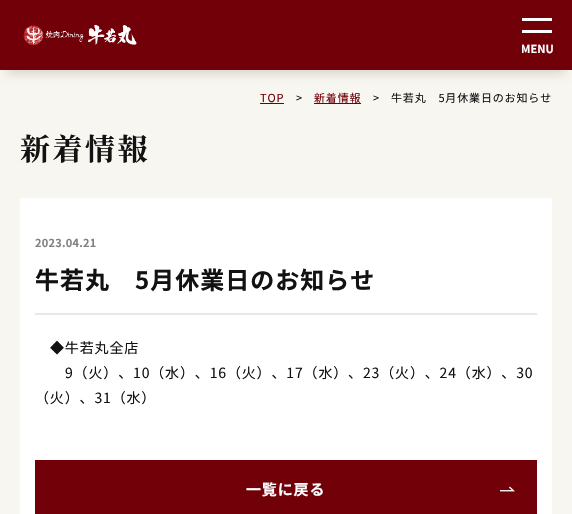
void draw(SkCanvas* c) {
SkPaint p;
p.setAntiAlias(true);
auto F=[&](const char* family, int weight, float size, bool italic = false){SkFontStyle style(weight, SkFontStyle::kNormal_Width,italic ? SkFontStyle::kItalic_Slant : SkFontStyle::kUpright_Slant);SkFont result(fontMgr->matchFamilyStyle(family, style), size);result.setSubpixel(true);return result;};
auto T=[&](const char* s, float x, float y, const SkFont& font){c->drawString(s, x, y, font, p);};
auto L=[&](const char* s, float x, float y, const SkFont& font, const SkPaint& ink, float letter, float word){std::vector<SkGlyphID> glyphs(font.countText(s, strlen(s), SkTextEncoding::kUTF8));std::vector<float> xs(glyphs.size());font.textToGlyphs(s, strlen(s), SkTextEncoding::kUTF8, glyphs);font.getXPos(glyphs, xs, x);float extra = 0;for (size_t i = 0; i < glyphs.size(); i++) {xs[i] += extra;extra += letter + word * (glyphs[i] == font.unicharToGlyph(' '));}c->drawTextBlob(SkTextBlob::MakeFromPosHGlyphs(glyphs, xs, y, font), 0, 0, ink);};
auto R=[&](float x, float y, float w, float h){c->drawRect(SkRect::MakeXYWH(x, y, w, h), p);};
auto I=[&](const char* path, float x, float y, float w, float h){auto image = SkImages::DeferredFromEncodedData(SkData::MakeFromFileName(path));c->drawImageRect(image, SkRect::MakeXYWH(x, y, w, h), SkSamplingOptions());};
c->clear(0xfff8f6f0);
p.setColor(0x26000000);
p.setMaskFilter(SkMaskFilter::MakeBlur(kNormal_SkBlurStyle, 5));
c->drawRect(SkRect::MakeXYWH(7,17,558,56),p);
p.setMaskFilter(nullptr);
p.setColor(0xff710008);
R(0,0,572,70);
I("1.png",23,24,114,22);
p.setColor(0xffffffff);
R(522,18,30,3);
R(522,30,30,3);
auto f1 = F("Noto Sans JP",700,11);
T("MENU",521,53,f1);
auto f2 = F("Noto Sans JP",400,11);
p.setColor(0xff710008);
L("TOP",260,102,f2,p,.85,0);
R(260,103,24,1);
p.setColor(0xff121212);
L(">",296,102,f2,p,.85,0);
p.setColor(0xff710008);
L("新着情報",314,102,f2,p,.85,0);
R(314,103,47,1);
p.setColor(0xff121212);
L(">",373,102,f2,p,.85,0);
L("牛若丸　5月休業日のお知らせ",391,102,f2,p,.85,0);
auto f3 = F("Noto Serif JP",700,30);
L("新着情報",20,160,f3,p,2.5,0);
p.setColor(0xffffffff);
R(20,198,532,316);
p.setColor(0xff818181);
L("2023.04.21",35,247,f1,p,.25,0);
p.setColor(0xffe8e8e8);
R(35,313,502,2);
auto f4 = F("Noto Sans JP",700,24);
p.setColor(0xff121212);
L("牛若丸　5月休業日のお知らせ",35,289,f4,p,1,0);
auto f5 = F("Noto Sans JP",400,14);
L("◆牛若丸全店",50,353,f5,p,.85,0);
L("9（火）、10（水）、16（火）、17（水）、23（火）、24（水）、30",65,378,f5,p,.85,0);
L("（火）、31（水）",35,403,f5,p,.85,0);
p.setColor(0xff710008);
R(35,460,502,54);
auto f6 = F("Noto Sans JP",700,15);
p.setColor(0xffffffff);
L("一覧に戻る",246,495,f6,p,.85,0);
I("2.png",500,486,15,6);
}
